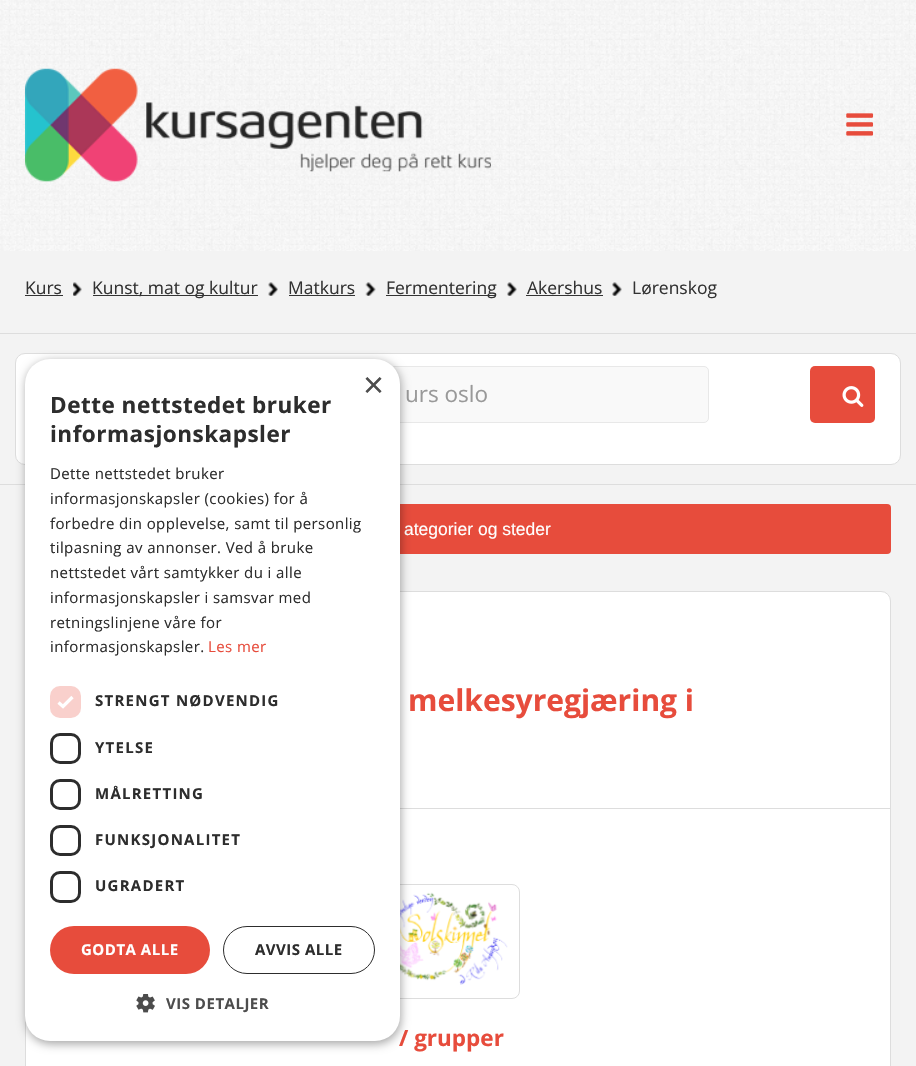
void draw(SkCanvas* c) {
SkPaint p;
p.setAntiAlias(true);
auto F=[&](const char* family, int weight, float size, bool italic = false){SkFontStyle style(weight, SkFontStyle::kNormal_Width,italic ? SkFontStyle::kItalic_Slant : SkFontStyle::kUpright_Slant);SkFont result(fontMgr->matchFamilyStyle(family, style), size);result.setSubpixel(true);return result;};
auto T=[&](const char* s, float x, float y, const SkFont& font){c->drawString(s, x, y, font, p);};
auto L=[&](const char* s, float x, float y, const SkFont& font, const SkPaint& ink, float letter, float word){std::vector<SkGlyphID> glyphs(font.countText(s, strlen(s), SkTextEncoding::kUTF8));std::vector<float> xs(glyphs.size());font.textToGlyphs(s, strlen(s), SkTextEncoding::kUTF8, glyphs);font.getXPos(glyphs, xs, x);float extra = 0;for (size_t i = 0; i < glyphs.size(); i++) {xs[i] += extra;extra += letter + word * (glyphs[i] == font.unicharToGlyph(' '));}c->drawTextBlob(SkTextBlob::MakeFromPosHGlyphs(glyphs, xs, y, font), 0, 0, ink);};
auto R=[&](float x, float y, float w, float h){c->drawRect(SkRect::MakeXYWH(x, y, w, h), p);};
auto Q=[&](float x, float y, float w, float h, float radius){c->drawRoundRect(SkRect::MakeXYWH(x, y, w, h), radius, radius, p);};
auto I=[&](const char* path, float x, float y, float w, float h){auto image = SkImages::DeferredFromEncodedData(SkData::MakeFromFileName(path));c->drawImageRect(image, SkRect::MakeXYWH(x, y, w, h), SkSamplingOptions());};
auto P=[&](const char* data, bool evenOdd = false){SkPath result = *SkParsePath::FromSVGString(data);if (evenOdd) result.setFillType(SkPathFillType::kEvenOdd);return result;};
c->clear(0xfff3f3f3);
I("1.png",0,0,916,251);
I("2.png",25,68,466,114);
I("3.png",846,113,28,23);
auto f1 = F("Open Sans",400,17.5);
p.setColor(0xff333333);
T("Kurs",25,294,f1);
R(25,295,38,1);
I("4.png",73,282,9,14);
R(93,295,165,1);
T("Kunst, mat og kultur",92,294,f1);
I("5.png",268,282,10,14);
T("Matkurs",288,294,f1);
R(289,295,66,1);
I("6.png",365,282,11,14);
R(386,295,110,1);
T("Fermentering",386,294,f1);
I("7.png",507,282,10,14);
T("Akershus",527,294,f1);
R(526,295,77,1);
I("7.png",612,282,10,14);
T("Lørenskog",632,294,f1);
p.setColor(0xffdddddd);
R(0,333,916,1);
R(0,484,916,1);
p.setColor(0xffffffff);
c->drawRoundRect(SkRect::MakeXYWH(15.5,353.5,885,111),9.5,9.5,p);
p.setStroke(true);
p.setStrokeWidth(1);
p.setColor(0xffdddddd);
c->drawRoundRect(SkRect::MakeXYWH(15.5,353.5,885,111),9.5,9.5,p);
p.setStroke(false);
p.setColor(0xfff9f9f9);
c->drawRoundRect(SkRect::MakeXYWH(41.5,366.5,667,56),4.5,4.5,p);
p.setStroke(true);
p.setColor(0xffe8e8e8);
c->drawRoundRect(SkRect::MakeXYWH(41.5,366.5,667,56),4.5,4.5,p);
auto f2 = F("Open Sans",400,22.5);
p.setStroke(false);
p.setColor(0xff999999);
T("urs oslo",405,402,f2);
p.setColor(0xffe74c3c);
Q(810,366,65,57,5);
I("8.png",842,386,22,21);
Q(25,504,866,50,4);
auto f3 = F("Liberation Sans",400,17.5);
p.setColor(0xffffffff);
T("ategorier og steder",404,535,f3);
c->drawRoundRect(SkRect::MakeXYWH(25.5,591.5,865,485),9.5,9.5,p);
p.setStroke(true);
p.setColor(0xffdddddd);
c->drawRoundRect(SkRect::MakeXYWH(25.5,591.5,865,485),9.5,9.5,p);
p.setStroke(false);
R(400,808,490,1);
auto f4 = F("Open Sans",700,30);
p.setColor(0xffe74c3c);
T("melkesyregjæring i",408,711,f4);
p.setStroke(true);
p.setColor(0xffdddddd);
c->drawRoundRect(SkRect::MakeXYWH(371.5,884.5,148,114),7.5,7.5,p);
I("9.png",400,892,108,93);
auto f5 = F("Open Sans",700,22.5);
p.setStroke(false);
p.setColor(0xffe74c3c);
T("/ grupper",399,1046,f5);
p.setColor(0x59000000);
p.setMaskFilter(SkMaskFilter::MakeBlur(kNormal_SkBlurStyle, 5));
c->drawRoundRect(SkRect::MakeXYWH(26,361,375,683),25,25,p);
p.setMaskFilter(nullptr);
p.setColor(0xffffffff);
Q(25,359,375,682,25);
auto f6 = F("Liberation Sans",400,36);
p.setColor(0xff4d4d4d);
T("×",363,397,f6);
p.setColor(0xff2d2d2d);
L("Dette nettstedet bruker",50,413,f5,p,.5,0);
L("informasjonskapsler",50,442,f5,p,.5,0);
auto f7 = F("Open Sans",400,15);
L("Dette nettstedet bruker",50,479,f7,p,.4,0);
L("informasjonskapsler (cookies) for å",50,504,f7,p,.4,0);
L("forbedre din opplevelse, samt til personlig",50,529,f7,p,.4,0);
L("tilpasning av annonser. Ved å bruke",50,553,f7,p,.4,0);
L("nettstedet vårt samtykker du i alle",50,578,f7,p,.4,0);
L("informasjonskapsler i samsvar med",50,603,f7,p,.4,0);
L("retningslinjene våre for",50,628,f7,p,.4,0);
L("informasjonskapsler.",50,652,f7,p,.4,0);
p.setColor(0xffe74c3c);
L("Les mer",208,652,f7,p,.4,0);
p.setColor(0xfff9d0cc);
Q(50,686,31,32,10);
p.setStroke(true);
p.setStrokeWidth(3.3);
p.setColor(0xffffffff);
c->drawPath(P("M58.5 702.5l4.5 4l9.5-9.5"),p);
auto f8 = F("Open Sans",700,15);
p.setStroke(false);
p.setColor(0xff2d2d2d);
L("STRENGT NØDVENDIG",95,706,f8,p,1.25,0);
p.setStroke(true);
p.setStrokeWidth(3);
c->drawRoundRect(SkRect::MakeXYWH(51.5,734.5,28,28),8.5,8.5,p);
p.setStroke(false);
L("YTELSE",95,753,f8,p,1.25,0);
p.setStroke(true);
c->drawRoundRect(SkRect::MakeXYWH(51.5,780.5,28,28),8.5,8.5,p);
p.setStroke(false);
L("MÅLRETTING",95,799,f8,p,1.25,0);
p.setStroke(true);
c->drawRoundRect(SkRect::MakeXYWH(51.5,826.5,28,28),8.5,8.5,p);
p.setStroke(false);
L("FUNKSJONALITET",95,845,f8,p,1.25,0);
p.setStroke(true);
c->drawRoundRect(SkRect::MakeXYWH(51.5,872.5,28,29),8.5,8.5,p);
p.setStroke(false);
L("UGRADERT",95,891,f8,p,1.25,0);
p.setColor(0xffe74c3c);
Q(50,926,160,48,24);
p.setColor(0xffffffff);
L("GODTA ALLE",81,955,f8,p,.5,0);
p.setStroke(true);
p.setStrokeWidth(1);
p.setColor(0xff2d2d2d);
c->drawRoundRect(SkRect::MakeXYWH(223.5,926.5,151,47),23.5,23.5,p);
p.setStroke(false);
L("AVVIS ALLE",255,955,f8,p,.5,0);
I("10.png",136,994,19,19);
p.setColor(0xff4d4d4d);
L("VIS DETALJER",166,1009,f8,p,.5,0);
}
